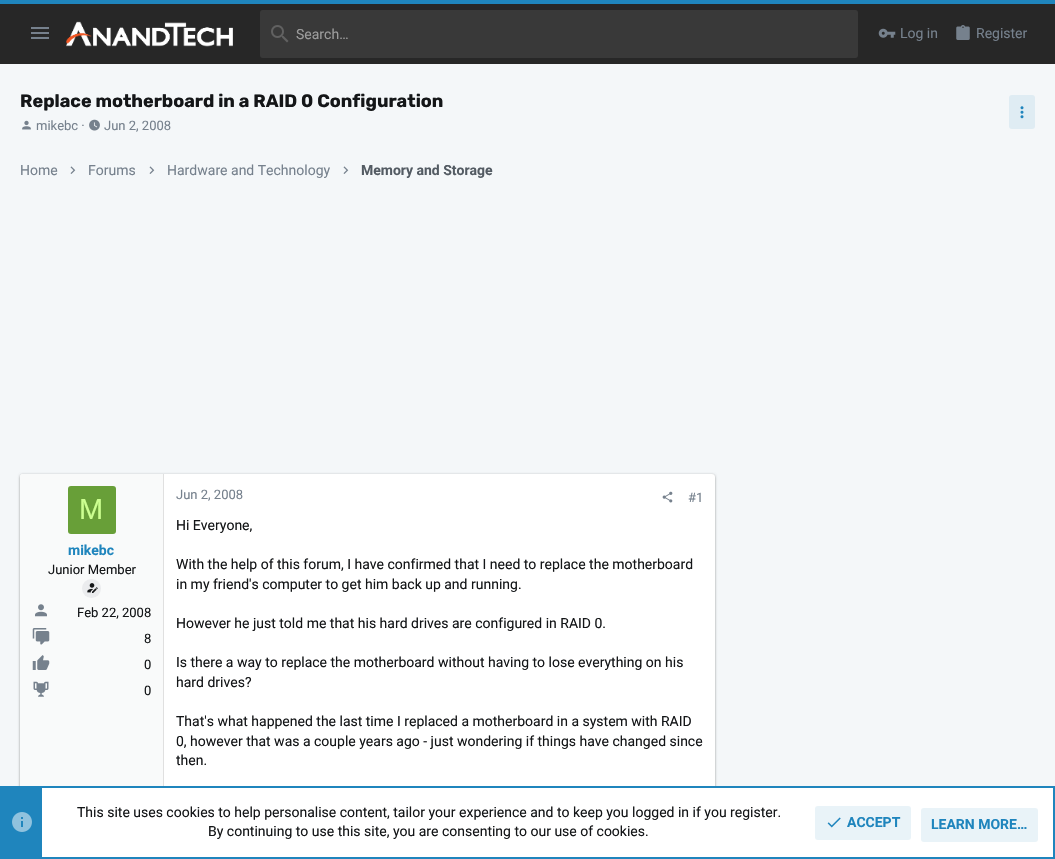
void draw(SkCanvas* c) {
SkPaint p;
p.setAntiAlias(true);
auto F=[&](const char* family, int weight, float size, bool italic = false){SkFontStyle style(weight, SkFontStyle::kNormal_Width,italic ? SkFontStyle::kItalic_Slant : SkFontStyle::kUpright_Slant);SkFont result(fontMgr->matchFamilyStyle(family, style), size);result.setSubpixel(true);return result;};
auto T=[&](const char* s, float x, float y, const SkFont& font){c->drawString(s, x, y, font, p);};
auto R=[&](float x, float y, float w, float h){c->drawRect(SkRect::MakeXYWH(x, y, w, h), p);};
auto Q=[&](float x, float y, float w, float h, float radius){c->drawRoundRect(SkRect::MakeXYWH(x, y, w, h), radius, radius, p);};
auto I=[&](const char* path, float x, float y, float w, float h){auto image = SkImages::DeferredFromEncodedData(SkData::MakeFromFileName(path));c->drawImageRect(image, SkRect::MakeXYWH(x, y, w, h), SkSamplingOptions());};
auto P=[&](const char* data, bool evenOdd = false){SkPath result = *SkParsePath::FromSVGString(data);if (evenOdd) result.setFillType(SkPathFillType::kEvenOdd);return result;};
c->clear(0xfff4f7f9);
p.setColor(0xff272727);
R(0,4,1055,60);
p.setColor(0xff1f85bd);
R(0,0,1055,4);
I("1.png",31,27,18,12);
I("2.png",66,21,167,26);
p.setColor(0xff393939);
Q(260,10,598,48,3);
I("3.png",271,25,18,18);
auto f1 = F("Roboto",400,14);
p.setColor(0xff9c9c9c);
T("Search…",296,39,f1);
I("4.png",878,28,18,10);
p.setColor(0xff76818d);
T("Log in",900,38,f1);
I("5.png",956,25,14,15);
T("Register",976,38,f1);
auto f2 = F("Rubik",700,18);
p.setColor(0xff141618);
T("Replace motherboard in a RAID 0 Configuration",20,107,f2);
I("6.png",22,120,9,10);
auto f3 = F("Roboto",400,13);
p.setColor(0xff76818d);
T("mikebc ·",36,130,f3);
I("7.png",89,119,11,12);
T("Jun 2, 2008",104,130,f3);
p.setColor(0xffdfecf3);
Q(1009,95,26,34,3);
I("8.png",1020,106,4,13);
p.setColor(0xff76818d);
T("Home",20,175,f1);
I("9.png",70,166,6,8);
T("Forums",88,175,f1);
I("9.png",149,166,6,8);
T("Hardware and Technology",167,175,f1);
I("9.png",343,166,6,8);
auto f4 = F("Roboto",700,14);
p.setColor(0xff535b63);
T("Memory and Storage",361,175,f4);
p.setColor(0x33000000);
p.setMaskFilter(SkMaskFilter::MakeBlur(kNormal_SkBlurStyle, 1.5));
c->drawRoundRect(SkRect::MakeXYWH(20,475,695,380),3,3,p);
p.setMaskFilter(nullptr);
p.setColor(0x1f000000);
p.setMaskFilter(SkMaskFilter::MakeBlur(kNormal_SkBlurStyle, 1));
c->drawRoundRect(SkRect::MakeXYWH(20,476,695,380),3,3,p);
p.setMaskFilter(nullptr);
p.setColor(0x24000000);
p.setMaskFilter(SkMaskFilter::MakeBlur(kNormal_SkBlurStyle, 1));
c->drawRoundRect(SkRect::MakeXYWH(20,474,695,380),3,3,p);
p.setMaskFilter(nullptr);
p.setColor(0xffffffff);
Q(20,474,695,380,3);
p.setColor(0xfff9fafa);
c->drawPath(P("M22 474h142v380h-142c-1 0-2-1-2-2v-376c0-1 1-2 2-2z"),p);
p.setColor(0xffe0e0e0);
R(163,474,1,312);
p.setColor(0xff689f38);
Q(68,486,48,48,3);
auto f5 = F("Liberation Sans",400,29);
p.setColor(0xffccff90);
T("M",79,519,f5);
p.setColor(0xff1f85bd);
T("mikebc",68,555,f4);
p.setColor(0xff141618);
T("Junior Member",48,574,f3);
p.setColor(0xffebecee);
c->drawCircle(91.5,588.5,9.5,p);
I("10.png",87,583,11,10);
I("11.png",35,604,12,13);
p.setColor(0xff141618);
T("Feb 22, 2008",77,617,f3);
I("12.png",32,628,18,17);
T("8",144,643,f3);
I("13.png",32,655,18,15);
T("0",144,669,f3);
I("14.png",33,681,16,16);
T("0",144,695,f3);
p.setColor(0xff76818d);
T("Jun 2, 2008",176,499,f3);
I("15.png",662,491,11,12);
T("#1",688,502,f3);
p.setColor(0xff141618);
T("Hi Everyone,",176,530,f1);
T("With the help of this forum, I have confirmed that I need to replace the motherboard",176,569,f1);
T("in my friend's computer to get him back up and running.",176,589,f1);
T("However he just told me that his hard drives are configured in RAID 0.",176,628,f1);
T("Is there a way to replace the motherboard without having to lose everything on his",176,667,f1);
T("hard drives?",176,687,f1);
T("That's what happened the last time I replaced a motherboard in a system with RAID",176,726,f1);
T("0, however that was a couple years ago - just wondering if things have changed since",176,746,f1);
T("then.",176,765,f1);
p.setColor(0xffffffff);
R(42,788,1011,69);
p.setStroke(true);
p.setStrokeWidth(2);
p.setColor(0xff1f85bd);
c->drawRect(SkRect::MakeXYWH(1,787,1053,71),p);
p.setStroke(false);
R(2,788,40,69);
I("16.png",12,812,20,20);
p.setColor(0xff141618);
T("This site uses cookies to help personalise content, tailor your experience and to keep you logged in if you register.",77,817,f1);
T("By continuing to use this site, you are consenting to our use of cookies.",208,836,f1);
p.setColor(0xffe9f3f8);
Q(815,806,96,34,3);
I("17.png",827,817,14,11);
p.setColor(0xff1f85bd);
T("ACCEPT",847,827,f4);
p.setColor(0xffe9f3f8);
Q(921,808,117,34,3);
p.setColor(0xff1f85bd);
T("LEARN MORE…",931,829,f4);
}
